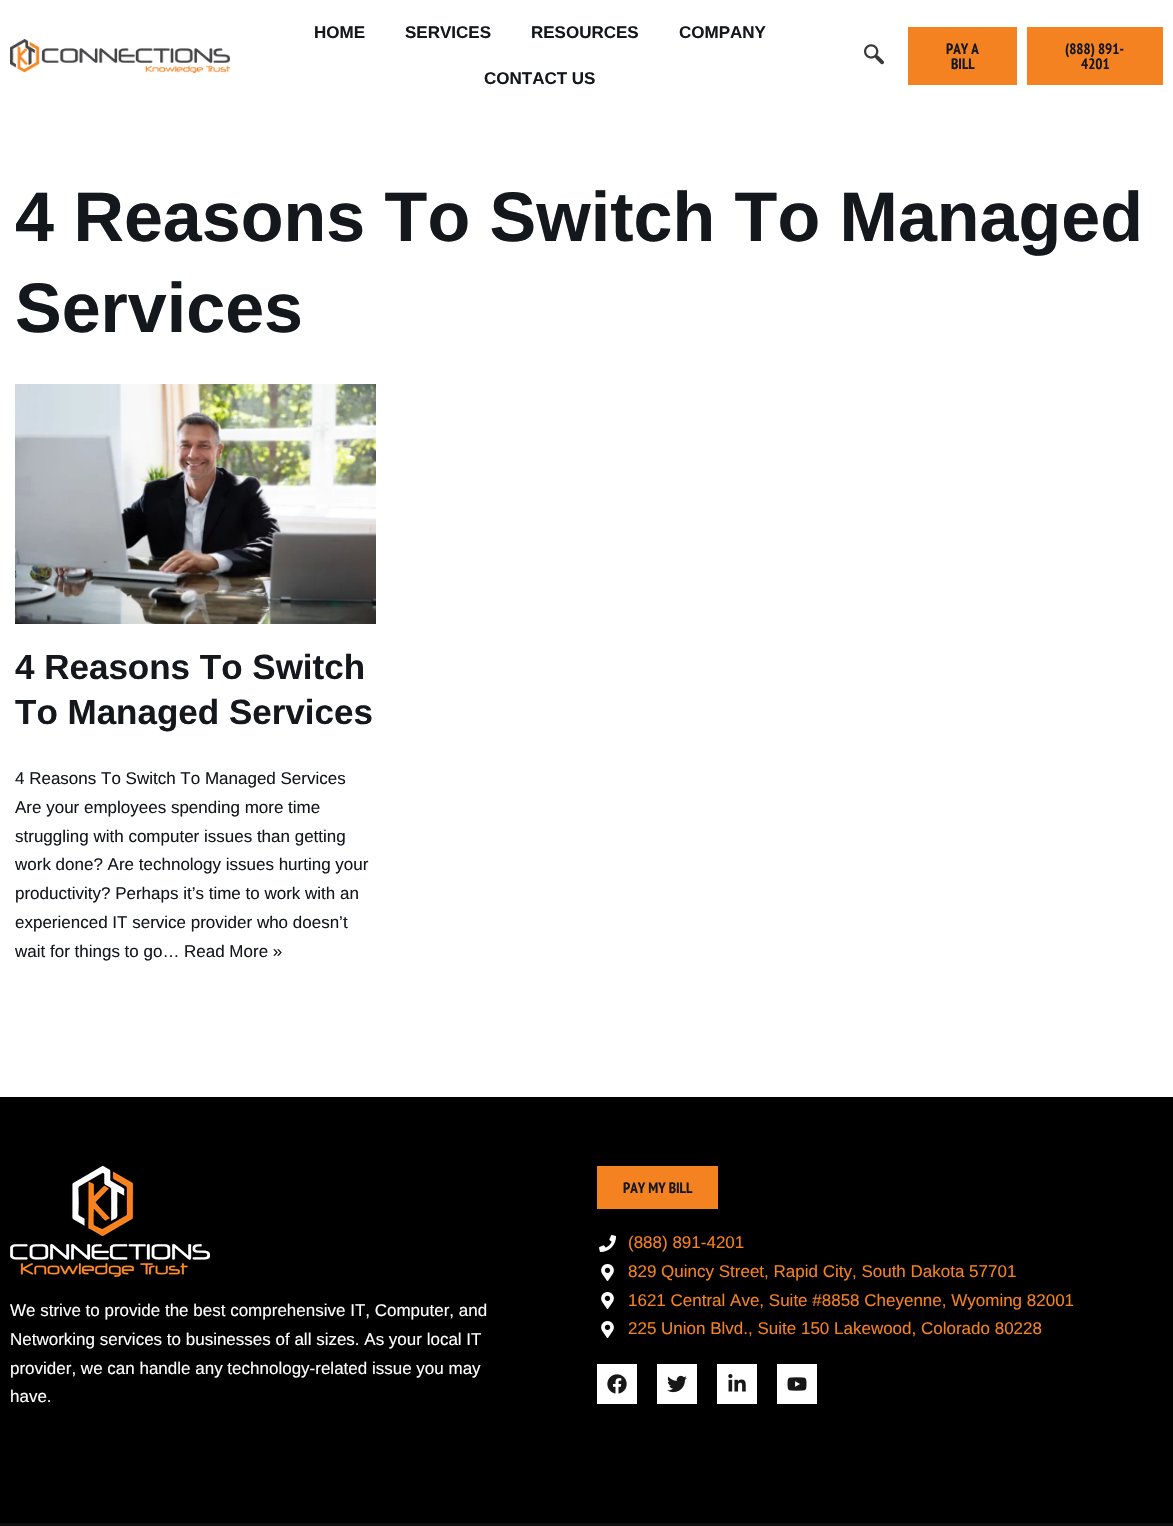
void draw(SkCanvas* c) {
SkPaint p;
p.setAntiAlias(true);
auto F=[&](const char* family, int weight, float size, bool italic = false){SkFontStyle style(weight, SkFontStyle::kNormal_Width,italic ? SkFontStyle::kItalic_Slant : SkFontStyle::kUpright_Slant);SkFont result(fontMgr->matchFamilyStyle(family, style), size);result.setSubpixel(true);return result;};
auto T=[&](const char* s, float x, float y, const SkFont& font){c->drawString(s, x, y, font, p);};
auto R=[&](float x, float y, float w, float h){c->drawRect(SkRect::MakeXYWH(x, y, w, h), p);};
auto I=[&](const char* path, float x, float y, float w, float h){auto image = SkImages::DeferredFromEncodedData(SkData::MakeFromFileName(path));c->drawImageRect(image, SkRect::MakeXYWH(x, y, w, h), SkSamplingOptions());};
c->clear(0xffffffff);
I("1.png",10,39,220,34);
auto f1 = F("Liberation Sans",700,17);
p.setColor(0xff14171c);
T("HOME",314,38,f1);
T("SERVICES",405,38,f1);
T("RESOURCES",531,38,f1);
T("COMPANY",679,38,f1);
T("CONTACT US",484,84,f1);
I("2.png",864,44,20,21);
p.setColor(0xfff58220);
R(908,27,109,58);
auto f2 = F("PT Sans Narrow",700,15);
p.setColor(0xff14171c);
T("PAY A",946,54,f2);
T("BILL",951,69,f2);
p.setColor(0xfff58220);
R(1027,27,136,58);
p.setColor(0xff14171c);
T("(888) 891-",1065,54,f2);
T("4201",1081,69,f2);
auto f3 = F("Liberation Sans",700,70);
T("4 Reasons To Switch To Managed",15,241,f3);
T("Services",15,332,f3);
I("3.png",15,384,361,240);
auto f4 = F("Liberation Sans",700,35);
T("4 Reasons To Switch",15,679,f4);
T("To Managed Services",15,724,f4);
auto f5 = F("Liberation Sans",400,17);
T("4 Reasons To Switch To Managed Services",15,784,f5);
T("Are your employees spending more time",15,813,f5);
T("struggling with computer issues than getting",15,842,f5);
T("work done? Are technology issues hurting your",15,870,f5);
T("productivity? Perhaps it’s time to work with an",15,899,f5);
T("experienced IT service provider who doesn’t",15,928,f5);
T("wait for things to go…",15,957,f5);
T("Read More »",184,957,f5);
p.setColor(0xff000000);
R(0,1097,1173,426);
p.setColor(0xff101010);
R(0,1523,1173,3);
p.setColor(0xfff58220);
R(597,1166,121,43);
p.setColor(0xff14171c);
T("PAY MY BILL",623,1193,f2);
I("4.png",599,1235,17,17);
p.setColor(0xfff58220);
T("(888) 891-4201",628,1248,f5);
I("5.png",601,1264,13,17);
T("829 Quincy Street, Rapid City, South Dakota 57701",628,1277,f5);
I("5.png",601,1292,13,17);
T("1621 Central Ave, Suite #8858 Cheyenne, Wyoming 82001",628,1306,f5);
I("5.png",601,1321,13,17);
T("225 Union Blvd., Suite 150 Lakewood, Colorado 80228",628,1334,f5);
p.setColor(0xffffffff);
R(597,1364,40,40);
I("6.png",607,1374,20,20);
R(657,1364,40,40);
I("7.png",667,1375,20,18);
R(717,1364,40,40);
I("8.png",728,1374,18,18);
R(777,1364,40,40);
I("9.png",787,1377,20,14);
I("10.png",10,1166,200,111);
T("We strive to provide the best comprehensive IT, Computer, and",10,1316,f5);
T("Networking services to businesses of all sizes. As your local IT",10,1345,f5);
T("provider, we can handle any technology-related issue you may",10,1374,f5);
T("have.",10,1402,f5);
}
